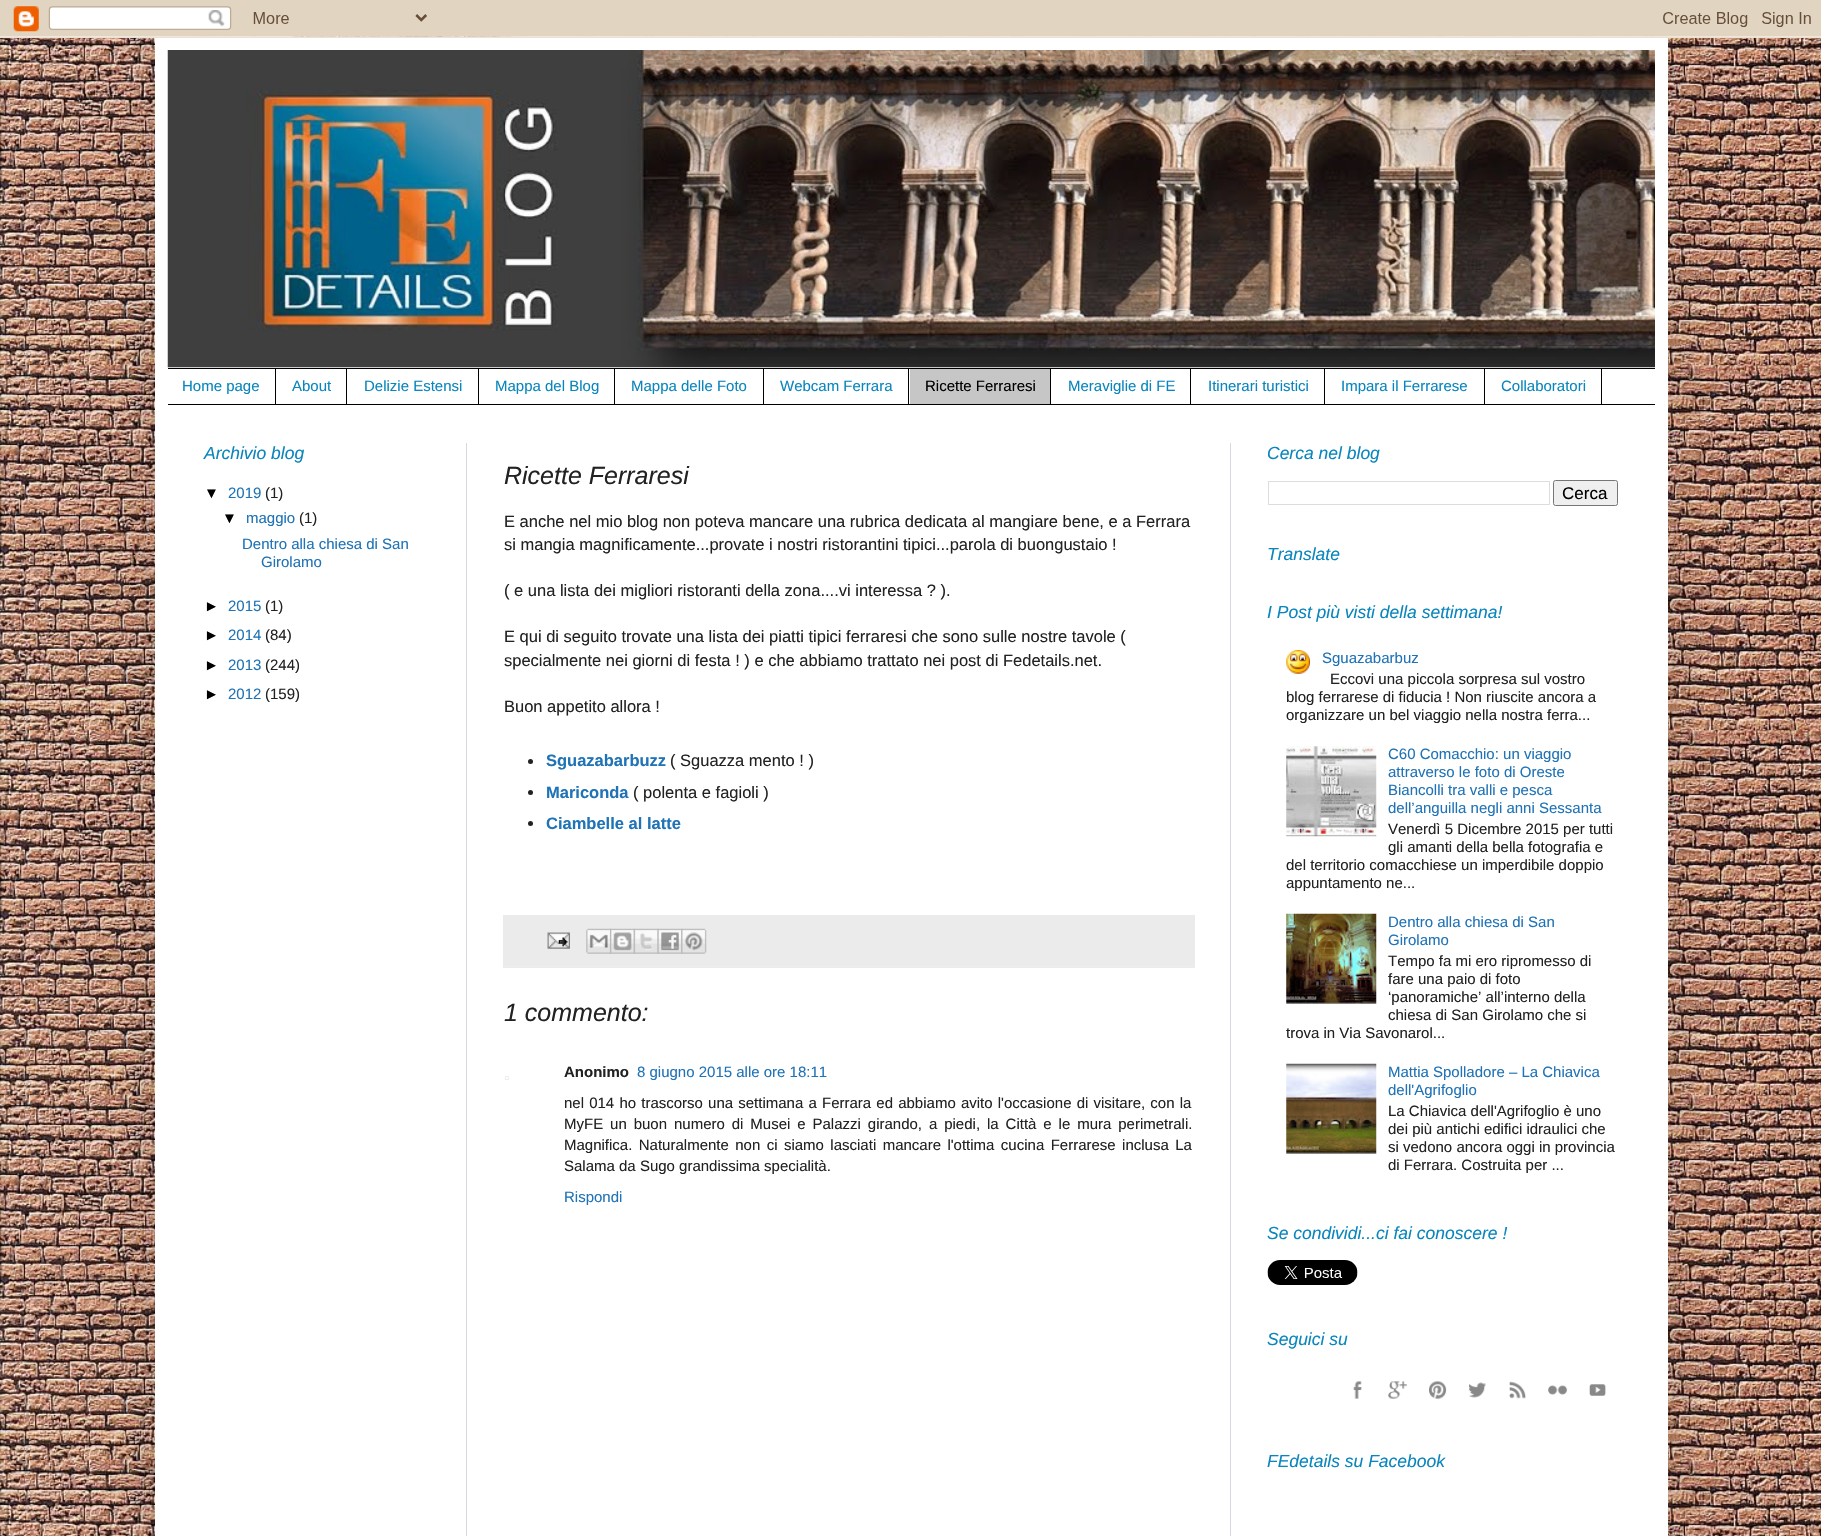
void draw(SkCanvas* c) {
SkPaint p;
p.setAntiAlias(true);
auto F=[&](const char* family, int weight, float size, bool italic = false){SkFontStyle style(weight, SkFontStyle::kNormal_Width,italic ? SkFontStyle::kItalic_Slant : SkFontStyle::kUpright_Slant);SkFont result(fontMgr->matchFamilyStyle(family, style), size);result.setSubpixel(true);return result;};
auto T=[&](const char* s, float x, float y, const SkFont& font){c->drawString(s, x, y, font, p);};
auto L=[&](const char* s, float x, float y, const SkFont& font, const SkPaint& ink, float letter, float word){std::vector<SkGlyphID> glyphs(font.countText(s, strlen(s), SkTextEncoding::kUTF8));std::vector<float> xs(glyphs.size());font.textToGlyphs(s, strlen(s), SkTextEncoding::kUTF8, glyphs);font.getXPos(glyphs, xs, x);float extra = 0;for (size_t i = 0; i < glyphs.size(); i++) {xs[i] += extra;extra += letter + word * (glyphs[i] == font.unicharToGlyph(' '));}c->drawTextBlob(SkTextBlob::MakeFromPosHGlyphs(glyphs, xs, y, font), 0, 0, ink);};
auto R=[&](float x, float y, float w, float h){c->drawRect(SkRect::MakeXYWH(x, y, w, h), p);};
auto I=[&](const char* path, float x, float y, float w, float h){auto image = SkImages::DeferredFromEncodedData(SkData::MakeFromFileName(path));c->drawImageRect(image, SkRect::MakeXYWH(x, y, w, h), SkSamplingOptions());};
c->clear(0xffffffff);
I("1.png",0,36,1821,1500);
p.setColor(0x26000000);
p.setMaskFilter(SkMaskFilter::MakeBlur(kNormal_SkBlurStyle, 25));
c->drawRect(SkRect::MakeXYWH(155,38,1513,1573),p);
p.setMaskFilter(nullptr);
I("2.png",0,0,1821,38);
p.setColor(0xffffffff);
R(155,38,1513,1498);
I("3.png",167,50,1488,318);
p.setColor(0xff000000);
R(168,368,1487,1);
R(168,404,1487,1);
R(275,369,1,35);
auto f1 = F("Liberation Sans",400,15);
p.setColor(0xff0986bd);
T("Home page",182,391,f1);
p.setColor(0xff000000);
R(346,369,1,35);
p.setColor(0xff0986bd);
T("About",292,391,f1);
p.setColor(0xff000000);
R(478,369,1,35);
p.setColor(0xff0986bd);
T("Delizie Estensi",364,391,f1);
p.setColor(0xff000000);
R(614,369,1,35);
p.setColor(0xff0986bd);
T("Mappa del Blog",495,391,f1);
p.setColor(0xff000000);
R(763,369,1,35);
p.setColor(0xff0986bd);
T("Mappa delle Foto",631,391,f1);
p.setColor(0xff000000);
R(908,369,1,35);
p.setColor(0xff0986bd);
T("Webcam Ferrara",780,391,f1);
p.setColor(0xffc7c6c6);
R(910,369,140,35);
p.setColor(0xff000000);
R(1050,369,1,35);
T("Ricette Ferraresi",925,391,f1);
R(1190,369,1,35);
p.setColor(0xff0986bd);
T("Meraviglie di FE",1068,391,f1);
p.setColor(0xff000000);
R(1324,369,1,35);
p.setColor(0xff0986bd);
T("Itinerari turistici",1208,391,f1);
p.setColor(0xff000000);
R(1484,369,1,35);
p.setColor(0xff0986bd);
T("Impara il Ferrarese",1341,391,f1);
p.setColor(0xff000000);
R(1601,369,1,35);
p.setColor(0xff0986bd);
T("Collaboratori",1501,391,f1);
p.setColor(0xffd5dadf);
R(466,443,1,1093);
R(1230,443,1,1093);
auto f2 = F("Liberation Sans",400,17.5,true);
p.setColor(0xff0986bd);
T("Archivio blog",204,459,f2);
p.setColor(0xff000000);
T("▼",204,498,f1);
p.setColor(0xff1f73b6);
T("2019",228,498,f1);
p.setColor(0xff222222);
T("(1)",265,498,f1);
p.setColor(0xff000000);
T("▼",222,523,f1);
p.setColor(0xff1f73b6);
T("maggio",246,523,f1);
p.setColor(0xff222222);
T("(1)",299,523,f1);
p.setColor(0xff1f73b6);
T("Dentro alla chiesa di San",242,549,f1);
T("Girolamo",261,567,f1);
p.setColor(0xff000000);
T("►",204,611,f1);
p.setColor(0xff1f73b6);
T("2015",228,611,f1);
p.setColor(0xff222222);
T("(1)",265,611,f1);
p.setColor(0xff000000);
T("►",204,640,f1);
p.setColor(0xff1f73b6);
T("2014",228,640,f1);
p.setColor(0xff222222);
T("(84)",265,640,f1);
p.setColor(0xff000000);
T("►",204,670,f1);
p.setColor(0xff1f73b6);
T("2013",228,670,f1);
p.setColor(0xff222222);
T("(244)",265,670,f1);
p.setColor(0xff000000);
T("►",204,699,f1);
p.setColor(0xff1f73b6);
T("2012",228,699,f1);
p.setColor(0xff222222);
T("(159)",265,699,f1);
auto f3 = F("Liberation Sans",400,25,true);
T("Ricette Ferraresi",504,484,f3);
auto f4 = F("Liberation Sans",400,16.5);
T("E anche nel mio blog non poteva mancare una rubrica dedicata al mangiare bene, e a Ferrara",504,527,f4);
T("si mangia magnificamente...provate i nostri ristorantini tipici...parola di buongustaio !",504,550,f4);
T("( e una lista dei migliori ristoranti della zona....vi interessa ? ).",504,596,f4);
T("E qui di seguito trovate una lista dei piatti tipici ferraresi che sono sulle nostre tavole (",504,642,f4);
T("specialmente nei giorni di festa ! ) e che abbiamo trattato nei post di Fedetails.net.",504,666,f4);
T("Buon appetito allora !",504,712,f4);
c->drawCircle(530.5,761.5,2.5,p);
auto f5 = F("Liberation Sans",700,16.5);
p.setColor(0xff1f73b6);
T("Sguazabarbuzz",546,766,f5);
p.setColor(0xff222222);
T("( Sguazza mento ! )",670,766,f4);
c->drawCircle(530.5,792.5,2.5,p);
p.setColor(0xff1f73b6);
T("Mariconda",546,798,f5);
p.setColor(0xff222222);
T("( polenta e fagioli )",633,798,f4);
c->drawCircle(530.5,823.5,2.5,p);
p.setColor(0xff1f73b6);
T("Ciambelle al latte",546,829,f5);
p.setColor(0xffebebeb);
R(503,915,692,53);
p.setColor(0xffeeeeee);
R(503,966,692,1);
I("4.png",547,932,23,17);
I("5.png",586,928,26,26);
I("6.png",610,928,25,26);
I("7.png",633,928,26,26);
I("8.png",657,928,26,26);
I("9.png",681,928,26,26);
p.setColor(0xff222222);
T("1 commento:",504,1021,f3);
p.setStroke(true);
p.setStrokeWidth(1);
p.setColor(0xffeeeeee);
c->drawRect(SkRect::MakeXYWH(505.5,1076.5,3,3),p);
auto f6 = F("Liberation Sans",700,15);
p.setStroke(false);
p.setColor(0xff222222);
T("Anonimo",564,1077,f6);
p.setColor(0xff1f73b6);
T("8 giugno 2015 alle ore 18:11",637,1077,f1);
p.setColor(0xff222222);
L("nel 014 ho trascorso una settimana a Ferrara ed abbiamo avito l'occasione di visitare, con la",564,1108,f1,p,0,1);
L("MyFE un buon numero di Musei e Palazzi girando, a piedi, la Città e le mura perimetrali.",564,1129,f1,p,0,2.75);
L("Magnifica. Naturalmente non ci siamo lasciati mancare l'ottima cucina Ferrarese inclusa La",564,1150,f1,p,0,2.25);
T("Salama da Sugo grandissima specialità.",564,1171,f1);
p.setColor(0xff1f73b6);
T("Rispondi",564,1202,f1);
p.setColor(0xff0986bd);
T("Cerca nel blog",1267,459,f2);
p.setStroke(true);
p.setColor(0xffdddddd);
c->drawRect(SkRect::MakeXYWH(1268.5,481.5,281,23),p);
p.setStroke(false);
p.setColor(0xffefefef);
c->drawRoundRect(SkRect::MakeXYWH(1553.5,480.5,64,25),2,2,p);
p.setStroke(true);
p.setColor(0xff767676);
c->drawRoundRect(SkRect::MakeXYWH(1553.5,480.5,64,25),2,2,p);
auto f7 = F("Liberation Sans",400,17);
p.setStroke(false);
p.setColor(0xff000000);
T("Cerca",1562,499,f7);
p.setColor(0xff0986bd);
T("Translate",1267,560,f2);
T("I Post più visti della settimana!",1267,618,f2);
I("10.png",1286,650,24,24);
p.setColor(0xff1f73b6);
T("Sguazabarbuz",1322,663,f1);
p.setColor(0xff222222);
T("Eccovi una piccola sorpresa sul vostro",1330,684,f1);
T("blog ferrarese di fiducia ! Non riuscite ancora a",1286,702,f1);
T("organizzare un bel viaggio nella nostra ferra...",1286,720,f1);
I("11.png",1286,746,91,91);
p.setColor(0xff1f73b6);
T("C60 Comacchio: un viaggio",1388,759,f1);
T("attraverso le foto di Oreste",1388,777,f1);
T("Biancolli tra valli e pesca",1388,795,f1);
T("dell’anguilla negli anni Sessanta",1388,813,f1);
p.setColor(0xff222222);
T("Venerdì 5 Dicembre 2015 per tutti",1388,834,f1);
T("gli amanti della bella fotografia e",1388,852,f1);
T("del territorio comacchiese un imperdibile doppio",1286,870,f1);
T("appuntamento ne...",1286,888,f1);
I("12.png",1286,913,91,91);
p.setColor(0xff1f73b6);
T("Dentro alla chiesa di San",1388,927,f1);
T("Girolamo",1388,945,f1);
p.setColor(0xff222222);
T("Tempo fa mi ero ripromesso di",1388,966,f1);
T("fare una paio di foto",1388,984,f1);
T("‘panoramiche’ all’interno della",1388,1002,f1);
T("chiesa di San Girolamo che si",1388,1020,f1);
T("trova in Via Savonarol...",1286,1038,f1);
I("13.png",1286,1063,91,91);
p.setColor(0xff1f73b6);
T("Mattia Spolladore – La Chiavica",1388,1077,f1);
T("dell'Agrifoglio",1388,1095,f1);
p.setColor(0xff222222);
T("La Chiavica dell'Agrifoglio è uno",1388,1116,f1);
T("dei più antichi edifici idraulici che",1388,1134,f1);
T("si vedono ancora oggi in provincia",1388,1152,f1);
T("di Ferrara. Costruita per ...",1388,1170,f1);
p.setColor(0xff0986bd);
T("Se condividi...ci fai conoscere !",1267,1239,f2);
I("14.png",1267,1260,91,25);
T("Seguici su",1267,1345,f2);
I("15.png",1353,1381,9,18);
I("16.png",1388,1381,19,18);
I("17.png",1429,1381,18,18);
I("18.png",1469,1382,17,16);
I("19.png",1509,1381,17,18);
I("20.png",1548,1385,20,10);
I("21.png",1589,1384,17,12);
T("FEdetails su Facebook",1267,1467,f2);
}
